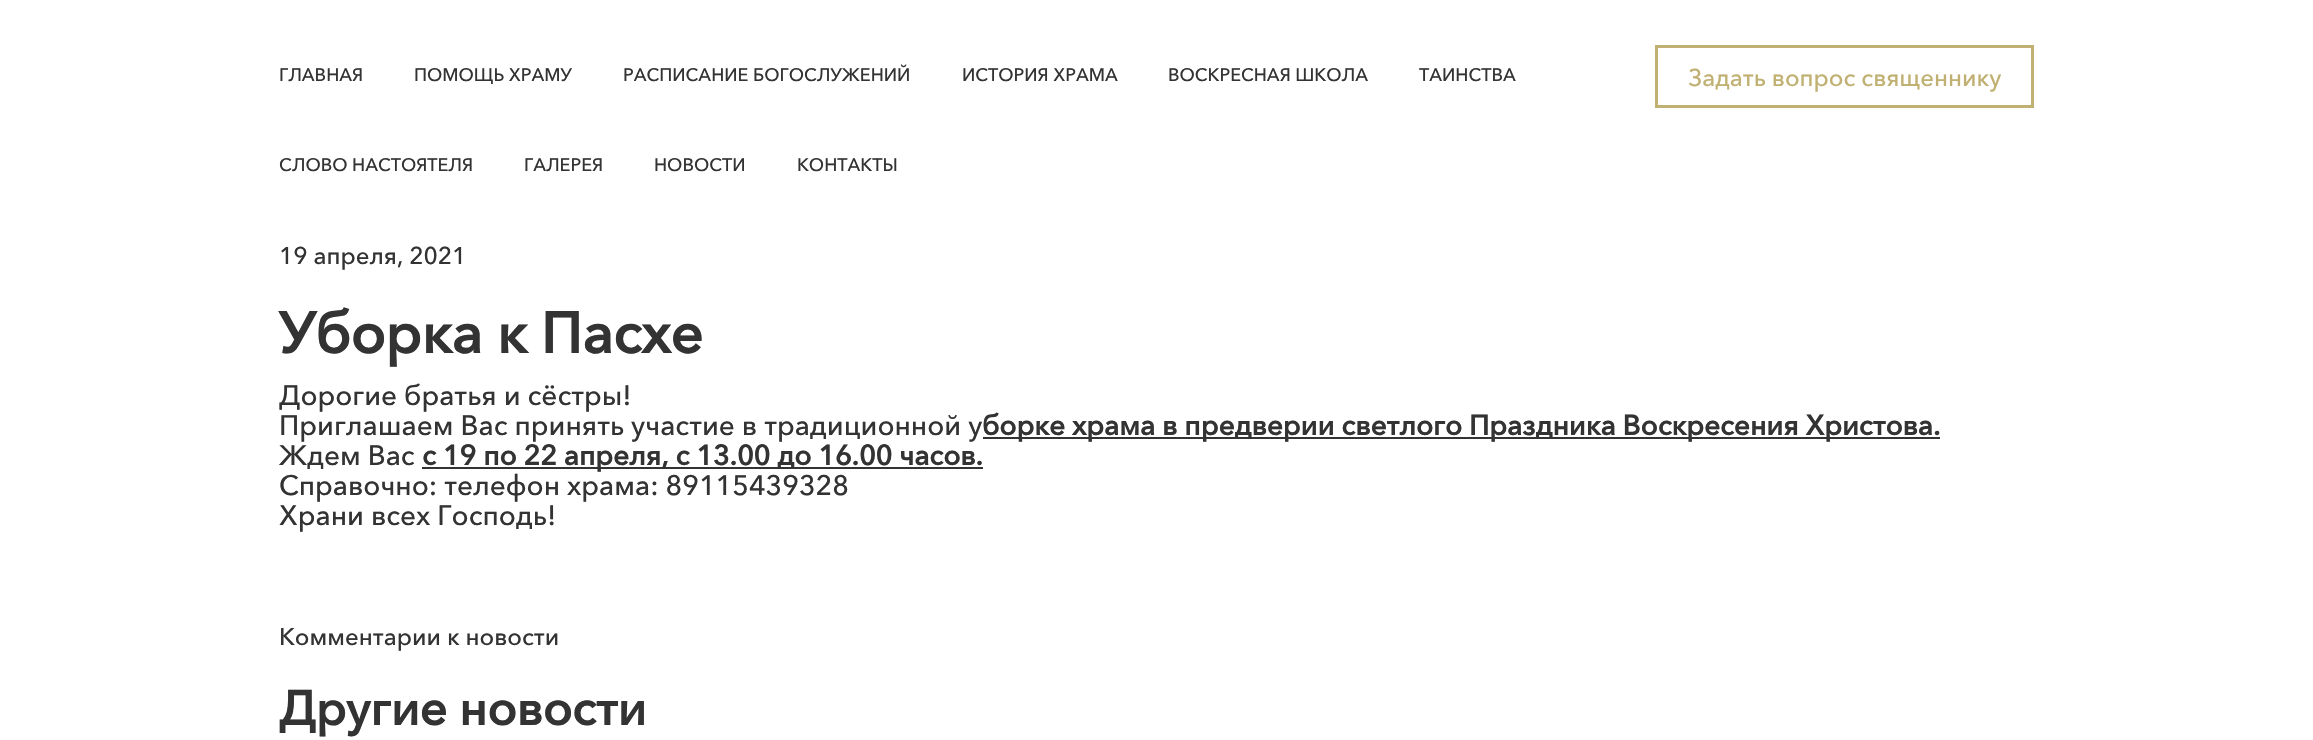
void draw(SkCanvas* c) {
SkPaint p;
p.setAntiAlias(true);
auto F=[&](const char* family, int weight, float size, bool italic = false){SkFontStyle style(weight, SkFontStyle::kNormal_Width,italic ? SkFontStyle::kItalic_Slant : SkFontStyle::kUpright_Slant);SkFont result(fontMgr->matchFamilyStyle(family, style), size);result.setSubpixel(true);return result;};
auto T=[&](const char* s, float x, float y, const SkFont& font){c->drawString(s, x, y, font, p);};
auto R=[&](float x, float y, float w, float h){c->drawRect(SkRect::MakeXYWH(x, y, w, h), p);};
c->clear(0xffffffff);
auto f1 = F("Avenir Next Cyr",500,18);
p.setColor(0xff333333);
T("ГЛАВНАЯ",279,81,f1);
T("ПОМОЩЬ ХРАМУ",414,81,f1);
T("РАСПИСАНИЕ БОГОСЛУЖЕНИЙ",623,81,f1);
T("ИСТОРИЯ ХРАМА",962,81,f1);
T("ВОСКРЕСНАЯ ШКОЛА",1168,81,f1);
T("ТАИНСТВА",1419,81,f1);
T("СЛОВО НАСТОЯТЕЛЯ",279,171,f1);
T("ГАЛЕРЕЯ",524,171,f1);
T("НОВОСТИ",654,171,f1);
T("КОНТАКТЫ",797,171,f1);
p.setStroke(true);
p.setStrokeWidth(3);
p.setColor(0xffc0b172);
c->drawRect(SkRect::MakeXYWH(1656.5,46.5,376,60),p);
auto f2 = F("Avenir Next Cyr",500,24);
p.setStroke(false);
T("Задать вопрос священнику",1688,86,f2);
p.setColor(0xff333333);
T("19 апреля, 2021",279,264,f2);
auto f3 = F("Avenir Next Cyr",700,57);
T("Уборка к Пасхе",279,353,f3);
auto f4 = F("Avenir Next Cyr",500,28);
T("Дорогие братья и сёстры!",279,405,f4);
T("Приглашаем Вас принять участие в традиционной у",279,435,f4);
R(983,437,957,2);
auto f5 = F("Avenir Next Cyr",700,28);
T("борке храма в предверии светлого Праздника Воскресения Христова.",982,435,f5);
T("Ждем Вас",279,465,f4);
R(422,467,561,2);
T("с 19 по 22 апреля, с 13.00 до 16.00 часов.",422,465,f5);
T("Справочно: телефон храма: 89115439328",279,495,f4);
T("Храни всех Господь!",279,525,f4);
T("Комментарии к новости",279,645,f2);
auto f6 = F("Avenir Next Cyr",700,48);
T("Другие новости",279,725,f6);
}
